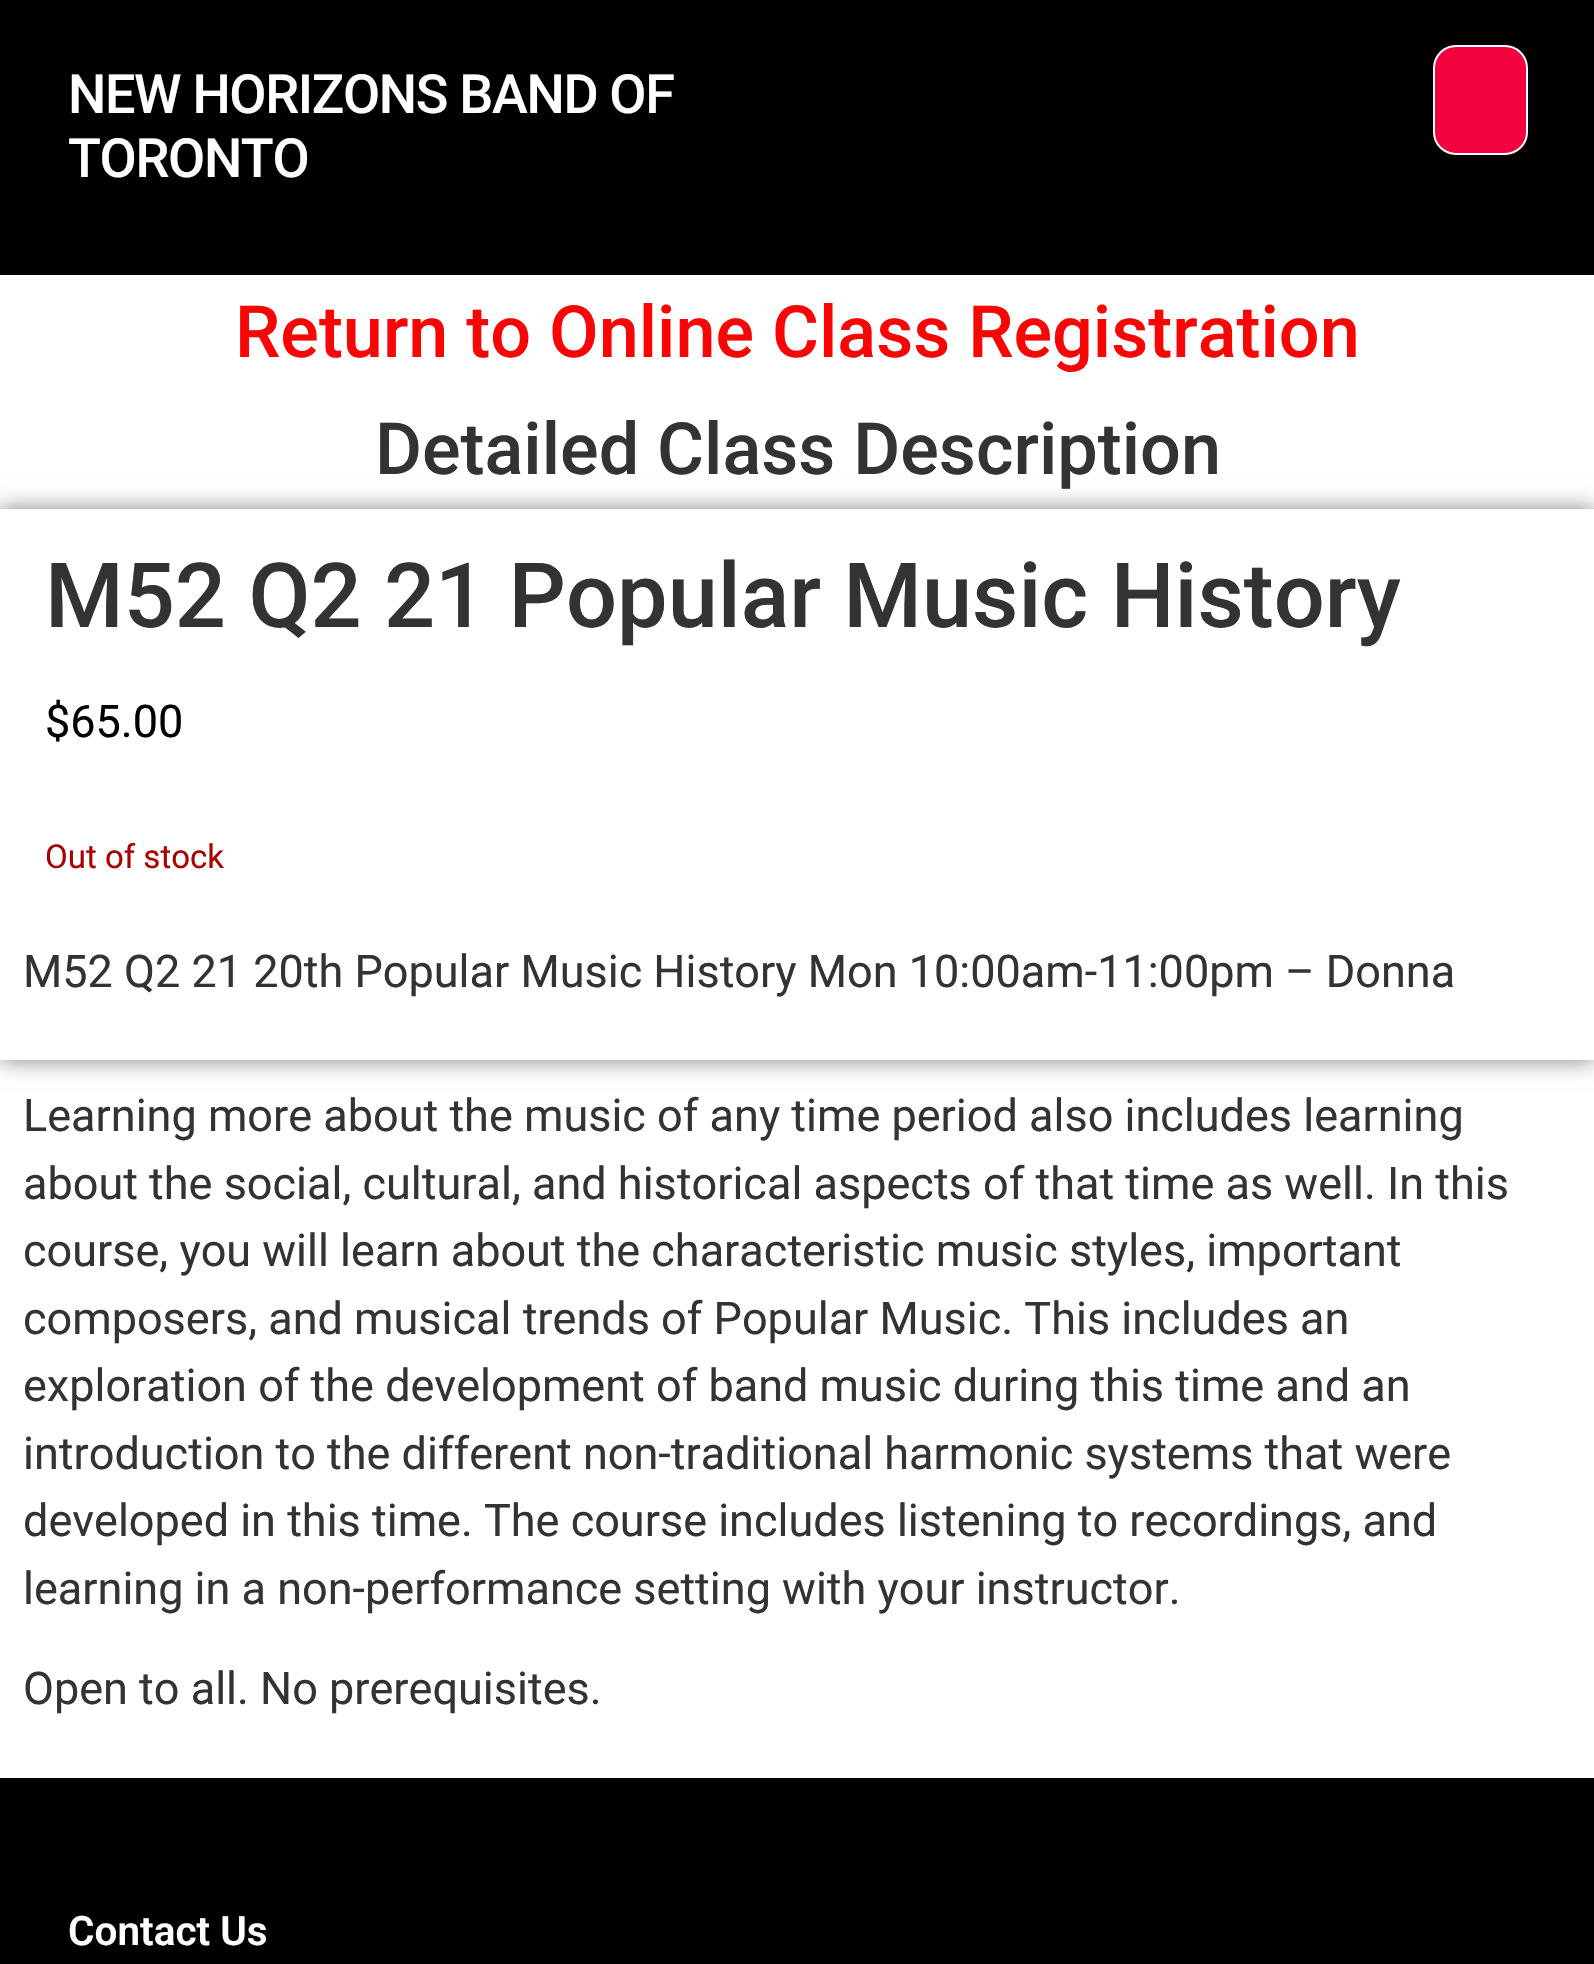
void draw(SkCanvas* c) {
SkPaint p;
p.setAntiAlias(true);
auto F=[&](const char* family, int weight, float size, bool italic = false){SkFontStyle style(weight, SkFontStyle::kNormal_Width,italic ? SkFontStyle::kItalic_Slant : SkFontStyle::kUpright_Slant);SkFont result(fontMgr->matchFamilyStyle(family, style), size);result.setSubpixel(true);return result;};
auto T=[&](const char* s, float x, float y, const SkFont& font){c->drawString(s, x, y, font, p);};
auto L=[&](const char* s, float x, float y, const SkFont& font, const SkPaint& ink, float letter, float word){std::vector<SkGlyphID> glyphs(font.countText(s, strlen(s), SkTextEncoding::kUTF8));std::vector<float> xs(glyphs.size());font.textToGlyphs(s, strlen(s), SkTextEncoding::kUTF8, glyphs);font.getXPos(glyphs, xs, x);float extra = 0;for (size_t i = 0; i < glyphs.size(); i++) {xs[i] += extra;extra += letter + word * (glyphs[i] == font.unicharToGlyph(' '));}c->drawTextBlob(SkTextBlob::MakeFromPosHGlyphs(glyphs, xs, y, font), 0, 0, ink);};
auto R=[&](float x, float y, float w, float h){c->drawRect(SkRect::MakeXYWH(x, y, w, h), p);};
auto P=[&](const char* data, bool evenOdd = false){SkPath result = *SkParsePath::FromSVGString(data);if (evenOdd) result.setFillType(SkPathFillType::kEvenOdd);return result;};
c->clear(0xffffffff);
p.setColor(0xff000000);
R(0,0,1594,275);
auto f1 = F("Roboto",500,54);
p.setColor(0xffffffff);
L("NEW HORIZONS BAND OF",68,113,f1,p,-1.35,0);
L("TORONTO",68,177,f1,p,-1.35,0);
p.setColor(0xfff2023e);
c->drawRoundRect(SkRect::MakeXYWH(1434,46,93,108),22,22,p);
p.setStroke(true);
p.setStrokeWidth(2);
p.setColor(0xffffffff);
c->drawRoundRect(SkRect::MakeXYWH(1434,46,93,108),22,22,p);
auto f2 = F("Roboto",500,72);
p.setStroke(false);
p.setColor(0xfff80505);
T("Return to Online Class Registration",235,357,f2);
p.setColor(0xff333333);
T("Detailed Class Description",375,474,f2);
c->save();
c->clipPath(P("M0 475h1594v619h-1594zm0 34h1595v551h-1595z",true),true);
p.setColor(0x80000000);
p.setMaskFilter(SkMaskFilter::MakeBlur(kNormal_SkBlurStyle, 11));
c->drawRect(SkRect::MakeXYWH(0,509,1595,551),p);
p.setMaskFilter(nullptr);
c->restore();
auto f3 = F("Roboto",500,90);
p.setColor(0xff333333);
T("M52 Q2 21 Popular Music History",45,627,f3);
auto f4 = F("Roboto",400,45);
p.setColor(0xff000000);
T("$65.00",45,737,f4);
auto f5 = F("Roboto",400,33);
p.setColor(0xffaa0000);
T("Out of stock",45,868,f5);
p.setColor(0xff333333);
T("M52 Q2 21 20th Popular Music History Mon 10:00am-11:00pm – Donna",23,987,f4);
T("Learning more about the music of any time period also includes learning",23,1131,f4);
T("about the social, cultural, and historical aspects of that time as well. In this",23,1199,f4);
T("course, you will learn about the characteristic music styles, important",23,1266,f4);
T("composers, and musical trends of Popular Music. This includes an",23,1334,f4);
T("exploration of the development of band music during this time and an",23,1401,f4);
T("introduction to the different non-traditional harmonic systems that were",23,1469,f4);
T("developed in this time. The course includes listening to recordings, and",23,1536,f4);
T("learning in a non-performance setting with your instructor.",23,1604,f4);
T("Open to all. No prerequisites.",23,1704,f4);
p.setColor(0xff000000);
R(0,1778,1594,186);
auto f6 = F("Roboto",600,40.5);
p.setColor(0xffffffff);
T("Contact Us",68,1945,f6);
}
